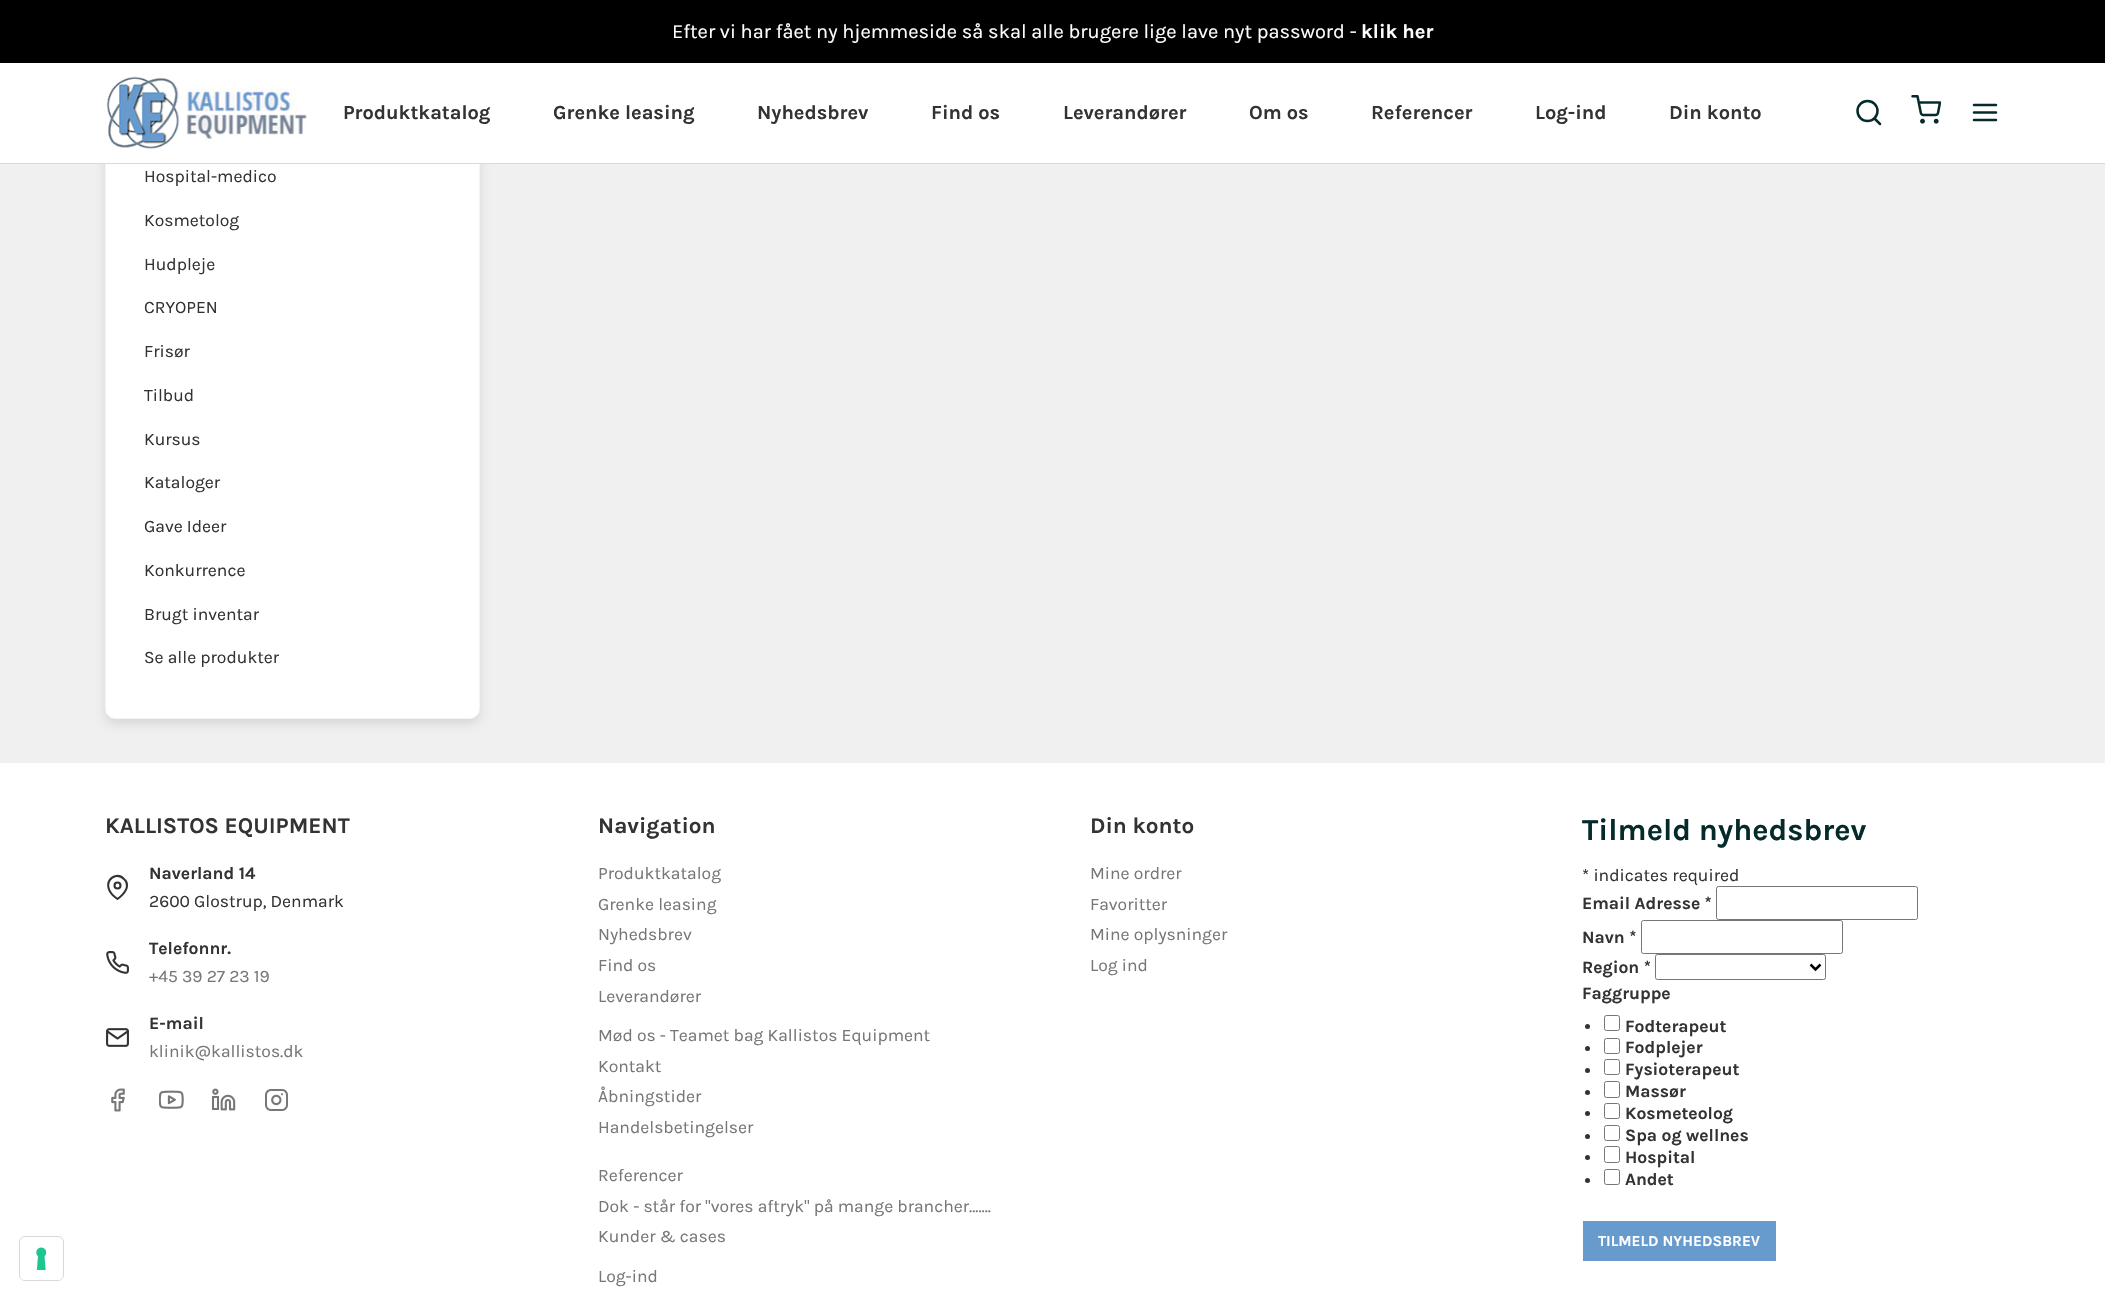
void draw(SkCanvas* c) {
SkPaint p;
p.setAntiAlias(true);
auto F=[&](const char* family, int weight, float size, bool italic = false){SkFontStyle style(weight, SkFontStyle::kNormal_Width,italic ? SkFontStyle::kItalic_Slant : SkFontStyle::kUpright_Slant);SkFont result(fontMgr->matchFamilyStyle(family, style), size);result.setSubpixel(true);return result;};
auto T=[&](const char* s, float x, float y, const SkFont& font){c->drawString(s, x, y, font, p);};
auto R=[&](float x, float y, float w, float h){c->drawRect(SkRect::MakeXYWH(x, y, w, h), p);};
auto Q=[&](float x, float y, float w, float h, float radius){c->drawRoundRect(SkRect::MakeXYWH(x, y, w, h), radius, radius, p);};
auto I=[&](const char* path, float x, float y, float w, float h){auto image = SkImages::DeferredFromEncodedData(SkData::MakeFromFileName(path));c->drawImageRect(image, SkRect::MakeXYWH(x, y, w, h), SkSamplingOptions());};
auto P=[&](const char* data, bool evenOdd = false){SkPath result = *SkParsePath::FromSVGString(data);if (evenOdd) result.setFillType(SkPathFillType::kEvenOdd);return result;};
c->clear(0xfff0f0f0);
p.setColor(0xffffffff);
R(0,763,2105,537);
p.setStroke(true);
p.setStrokeWidth(1);
p.setColor(0xffd9d9d9);
c->drawRoundRect(SkRect::MakeXYWH(19.5,1236.5,44,44),5.5,5.5,p);
p.setStroke(false);
p.setColor(0xffffffff);
Q(20,1238,43,42,5);
I("1.png",36,1247,11,23);
p.setColor(0x1a000000);
p.setMaskFilter(SkMaskFilter::MakeBlur(kNormal_SkBlurStyle, 5));
c->drawRoundRect(SkRect::MakeXYWH(105,-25,375,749),10,10,p);
p.setMaskFilter(nullptr);
p.setColor(0xffffffff);
c->drawRoundRect(SkRect::MakeXYWH(105.5,-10.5,374,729),9.5,9.5,p);
p.setStroke(true);
p.setColor(0xfff4f4f4);
c->drawRoundRect(SkRect::MakeXYWH(105.5,-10.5,374,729),9.5,9.5,p);
p.setStroke(false);
p.setColor(0xffffffff);
R(0,63,2105,100);
p.setColor(0xffd9d9d9);
R(0,163,2105,1);
p.setColor(0xff000000);
R(0,0,2105,63);
auto f1 = F("Karla",400,20);
p.setColor(0xffffffff);
T("Efter vi har fået ny hjemmeside så skal alle brugere lige lave nyt password -",672,38,f1);
auto f2 = F("Karla",700,20);
T("klik her",1361,38,f2);
I("2.png",106,76,201,73);
p.setColor(0xff333333);
T("Produktkatalog",343,119,f2);
T("Grenke leasing",553,119,f2);
T("Nyhedsbrev",757,119,f2);
T("Find os",931,119,f2);
T("Leverandører",1063,119,f2);
T("Om os",1249,119,f2);
T("Referencer",1371,119,f2);
T("Log-ind",1535,119,f2);
T("Din konto",1669,119,f2);
p.setStroke(true);
p.setStrokeWidth(2.5);
p.setColor(0xff042a2b);
c->drawCircle(1867.5,111,10,p);
p.setStrokeCap(SkPaint::kRound_Cap);
p.setStrokeJoin(SkPaint::kRound_Join);
c->drawPath(P("M1880 124l-5.5-5.5"),p);
I("3.png",1911,95,30,29);
c->drawPath(P("M1974 112.5h22m-22-7.5h22m-22 15h22"),p);
auto f3 = F("Karla",400,17.5);
p.setStroke(false);
p.setColor(0xff333333);
T("Hospital-medico",144,182,f3);
T("Kosmetolog",144,226,f3);
T("Hudpleje",144,270,f3);
T("CRYOPEN",144,313,f3);
T("Frisør",144,357,f3);
T("Tilbud",144,401,f3);
T("Kursus",144,445,f3);
T("Kataloger",144,488,f3);
T("Gave Ideer",144,532,f3);
T("Konkurrence",144,576,f3);
T("Brugt inventar",144,620,f3);
T("Se alle produkter",144,663,f3);
auto f4 = F("Karla",700,22.5);
T("KALLISTOS EQUIPMENT",105,833,f4);
p.setStroke(true);
p.setStrokeWidth(2.1);
c->drawPath(P("M127 885.5c0 7-9.5 13.5-9.5 13.5c-20-13.5-3-30 6.5-20c2 1.5 3 4 3 6.5z"),p);
p.setStrokeCap(SkPaint::kButt_Cap);
p.setStrokeJoin(SkPaint::kMiter_Join);
c->drawCircle(117.5,885.5,3,p);
auto f5 = F("Karla",700,17.5);
p.setStroke(false);
T("Naverland 14",149,879,f5);
T("2600 Glostrup, Denmark",149,907,f3);
I("4.png",106,951,23,23);
T("Telefonnr.",149,954,f5);
p.setColor(0xff777777);
T("+45 39 27 23 19",149,982,f3);
I("5.png",106,1028,23,19);
p.setColor(0xff333333);
T("E-mail",149,1029,f5);
p.setColor(0xff777777);
T("klinik@kallistos.dk",149,1057,f3);
I("6.png",111,1088,14,24);
I("7.png",159,1090,25,19);
I("8.png",212,1088,24,23);
I("9.png",265,1089,23,22);
p.setColor(0xff333333);
T("Navigation",598,833,f4);
p.setColor(0xff777777);
T("Produktkatalog",598,879,f3);
T("Grenke leasing",598,910,f3);
T("Nyhedsbrev",598,940,f3);
T("Find os",598,971,f3);
T("Leverandører",598,1002,f3);
T("Mød os - Teamet bag Kallistos Equipment",598,1041,f3);
T("Kontakt",598,1072,f3);
T("Åbningstider",598,1102,f3);
T("Handelsbetingelser",598,1133,f3);
T("Referencer",598,1181,f3);
T("Dok - står for \"vores aftryk\" på mange brancher.......",598,1212,f3);
T("Kunder & cases",598,1242,f3);
T("Log-ind",598,1282,f3);
p.setColor(0xff333333);
T("Din konto",1090,833,f4);
p.setColor(0xff777777);
T("Mine ordrer",1090,879,f3);
T("Favoritter",1090,910,f3);
T("Mine oplysninger",1090,940,f3);
T("Log ind",1090,971,f3);
auto f6 = F("Karla",700,30.6);
p.setColor(0xff042a2b);
T("Tilmeld nyhedsbrev",1582,840,f6);
p.setColor(0xff333333);
T("* indicates required",1582,881,f3);
T("Email Adresse *",1582,909,f5);
p.setStroke(true);
p.setStrokeWidth(1);
p.setColor(0xff767676);
c->drawRoundRect(SkRect::MakeXYWH(1716.5,886.5,201,33),2,2,p);
p.setStroke(false);
p.setColor(0xff333333);
T("Navn *",1582,943,f5);
p.setStroke(true);
p.setColor(0xff767676);
c->drawRoundRect(SkRect::MakeXYWH(1641.5,920.5,201,33),2,2,p);
p.setStroke(false);
p.setColor(0xff333333);
T("Region *",1582,973,f5);
p.setStroke(true);
p.setColor(0xff767676);
c->drawRoundRect(SkRect::MakeXYWH(1655.5,954.5,170,25),2,2,p);
p.setStrokeWidth(2.5);
p.setColor(0xff000000);
c->drawPath(P("M1810.5 964.5l5 5l5-5"),p);
p.setStroke(false);
p.setColor(0xff333333);
T("Faggruppe",1582,999,f5);
c->drawCircle(1587.5,1026.5,2.5,p);
p.setStroke(true);
p.setStrokeWidth(1);
p.setColor(0xff767676);
c->drawRoundRect(SkRect::MakeXYWH(1604.5,1015.5,15,15),2,2,p);
p.setStroke(false);
p.setColor(0xff333333);
T("Fodterapeut",1625,1032,f5);
c->drawCircle(1587.5,1048.5,2.5,p);
p.setStroke(true);
p.setColor(0xff767676);
c->drawRoundRect(SkRect::MakeXYWH(1604.5,1038.5,15,15),2,2,p);
p.setStroke(false);
p.setColor(0xff333333);
T("Fodplejer",1625,1053,f5);
c->drawCircle(1587.5,1070.5,2.5,p);
p.setStroke(true);
p.setColor(0xff767676);
c->drawRoundRect(SkRect::MakeXYWH(1604.5,1059.5,15,15),2,2,p);
p.setStroke(false);
p.setColor(0xff333333);
T("Fysioterapeut",1625,1075,f5);
c->drawCircle(1587.5,1092.5,2.5,p);
p.setStroke(true);
p.setColor(0xff767676);
c->drawRoundRect(SkRect::MakeXYWH(1604.5,1081.5,15,16),2,2,p);
p.setStroke(false);
p.setColor(0xff333333);
T("Massør",1625,1097,f5);
c->drawCircle(1587.5,1113.5,2.5,p);
p.setStroke(true);
p.setColor(0xff767676);
c->drawRoundRect(SkRect::MakeXYWH(1604.5,1103.5,15,15),2,2,p);
p.setStroke(false);
p.setColor(0xff333333);
T("Kosmeteolog",1625,1119,f5);
c->drawCircle(1587.5,1136.5,2.5,p);
p.setStroke(true);
p.setColor(0xff767676);
c->drawRoundRect(SkRect::MakeXYWH(1604.5,1125.5,15,15),2,2,p);
p.setStroke(false);
p.setColor(0xff333333);
T("Spa og wellnes",1625,1141,f5);
c->drawCircle(1587.5,1157.5,2.5,p);
p.setStroke(true);
p.setColor(0xff767676);
c->drawRoundRect(SkRect::MakeXYWH(1604.5,1146.5,15,16),2,2,p);
p.setStroke(false);
p.setColor(0xff333333);
T("Hospital",1625,1163,f5);
c->drawCircle(1587.5,1180.5,2.5,p);
p.setStroke(true);
p.setColor(0xff767676);
c->drawRoundRect(SkRect::MakeXYWH(1604.5,1169.5,15,15),2,2,p);
p.setStroke(false);
p.setColor(0xff333333);
T("Andet",1625,1185,f5);
p.setColor(0xff679acd);
R(1583,1221,193,40);
auto f7 = F("Karla",700,15.25);
p.setColor(0xffffffff);
T("TILMELD NYHEDSBREV",1598,1246,f7);
}
